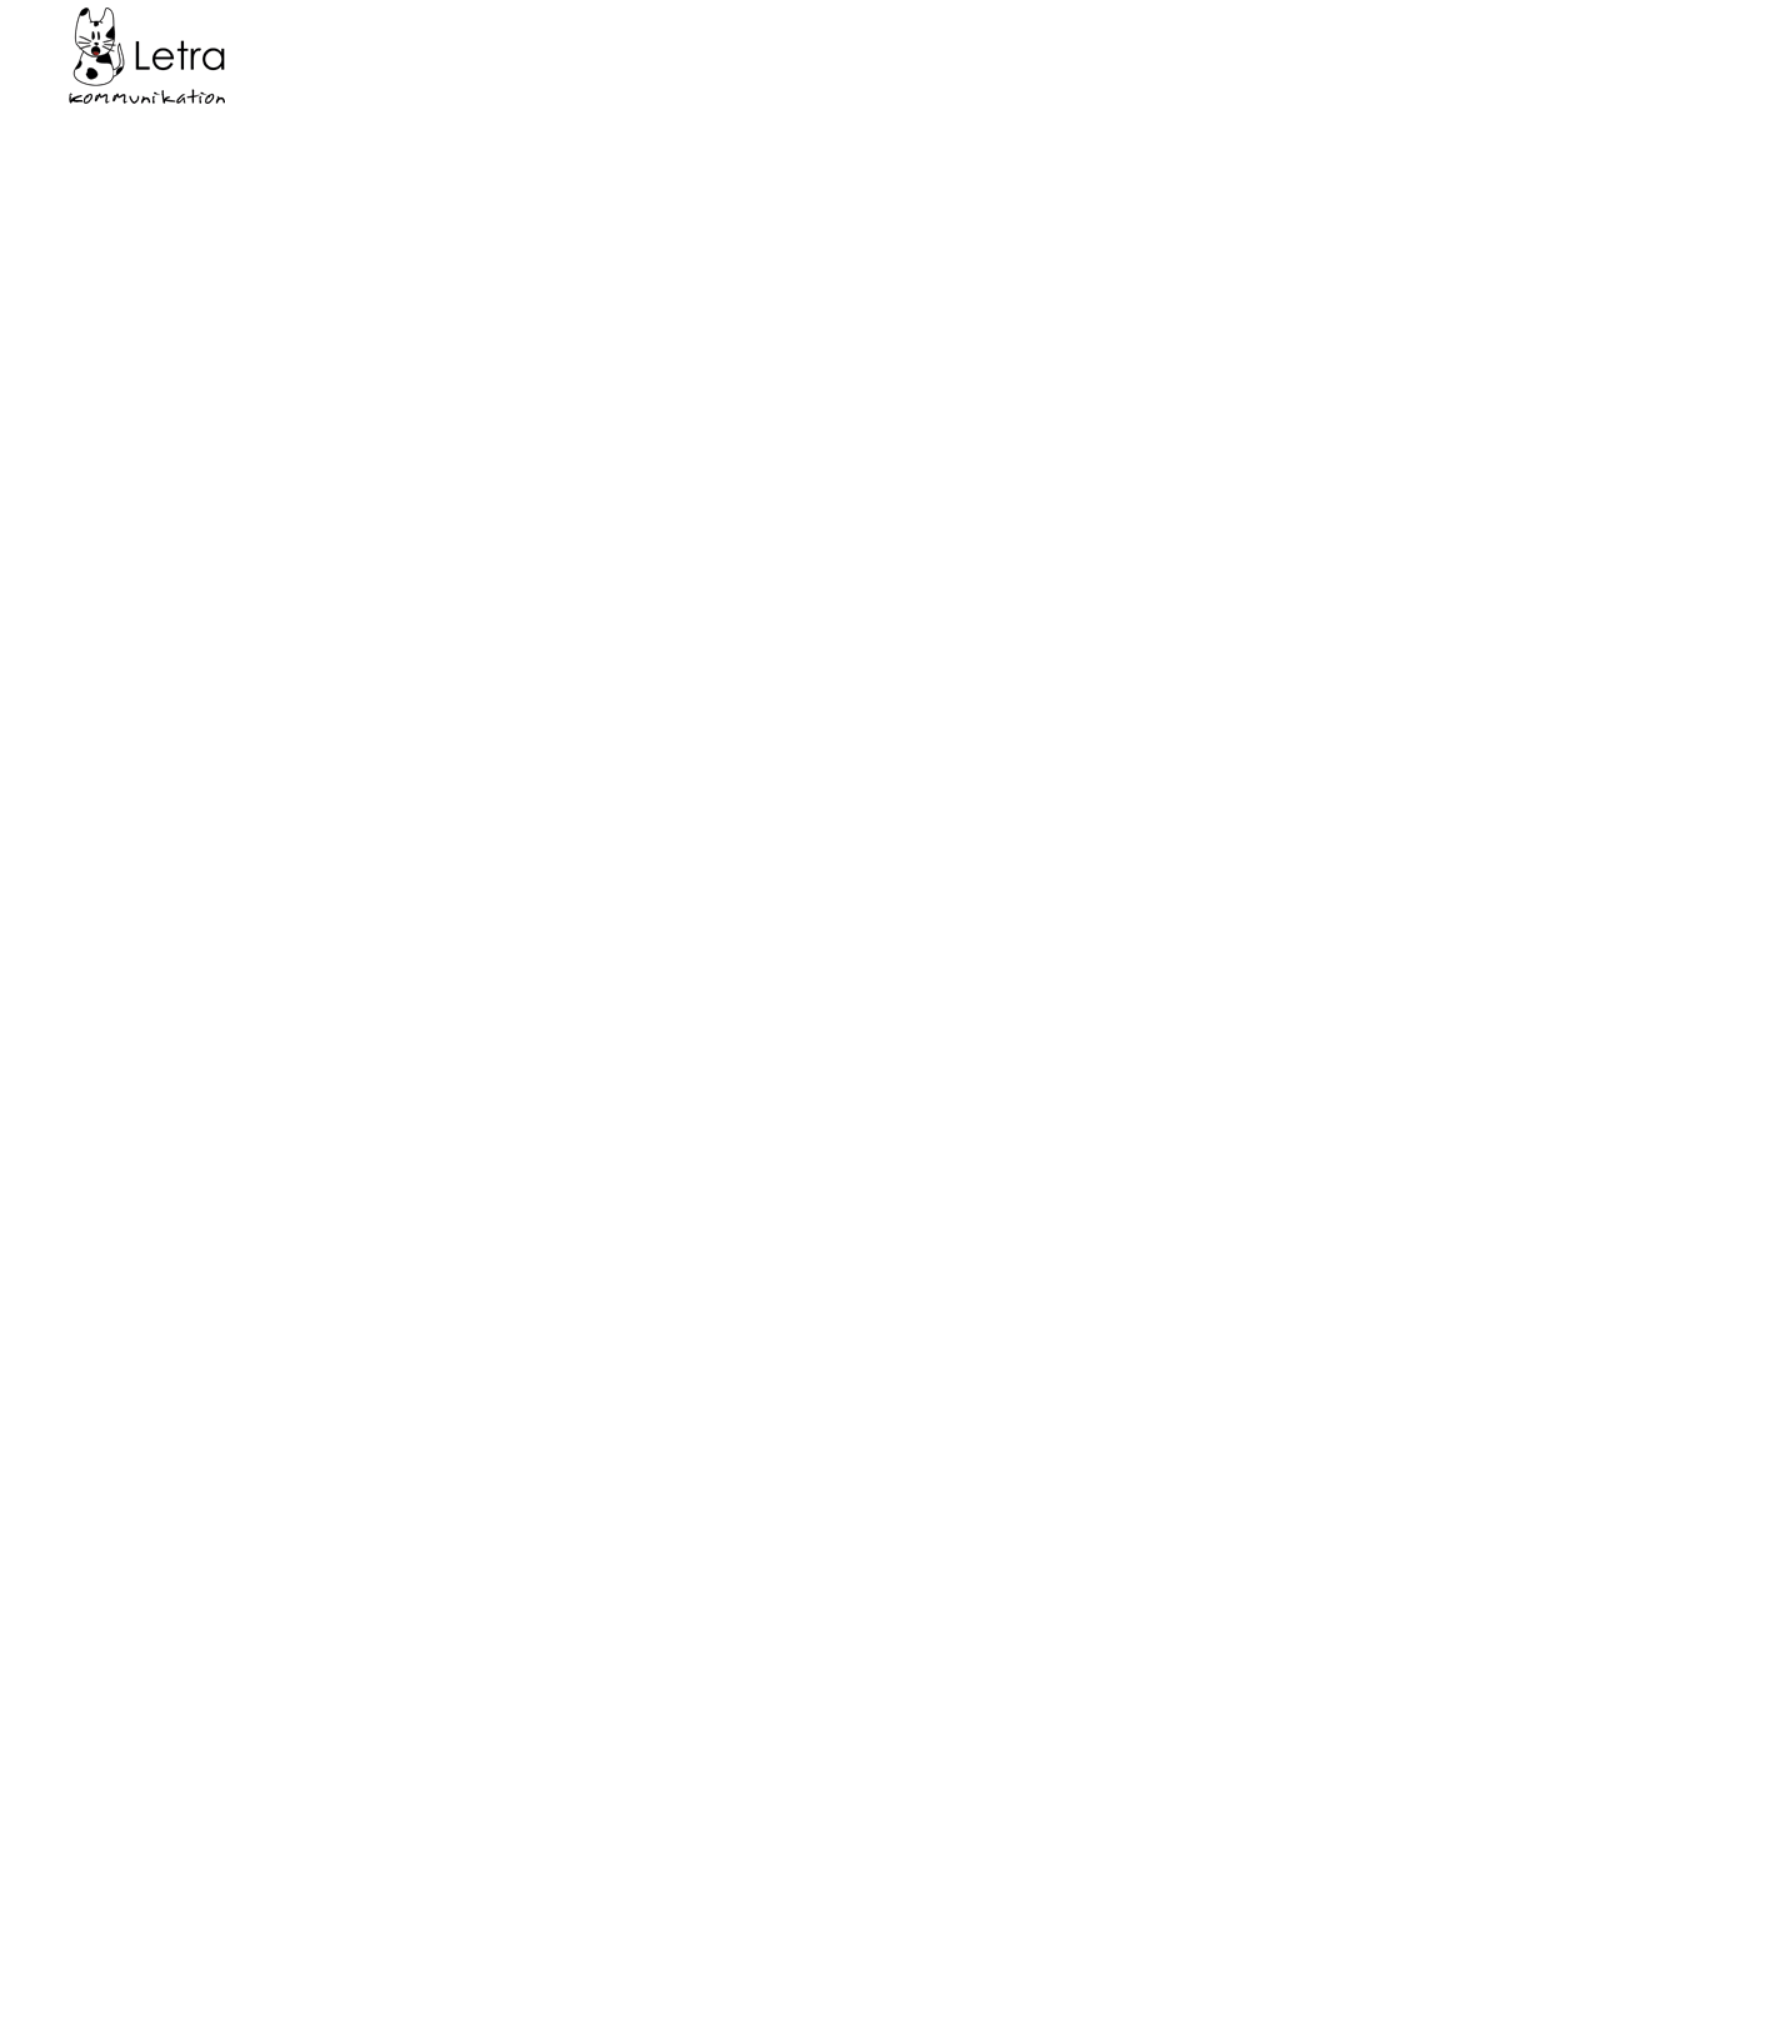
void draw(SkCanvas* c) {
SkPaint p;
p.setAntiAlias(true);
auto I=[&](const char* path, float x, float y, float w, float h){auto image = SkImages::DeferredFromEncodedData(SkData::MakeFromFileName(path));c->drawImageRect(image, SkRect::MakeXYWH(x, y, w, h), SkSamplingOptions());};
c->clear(0xffffffff);
I("1.png",68,7,157,97);
}
